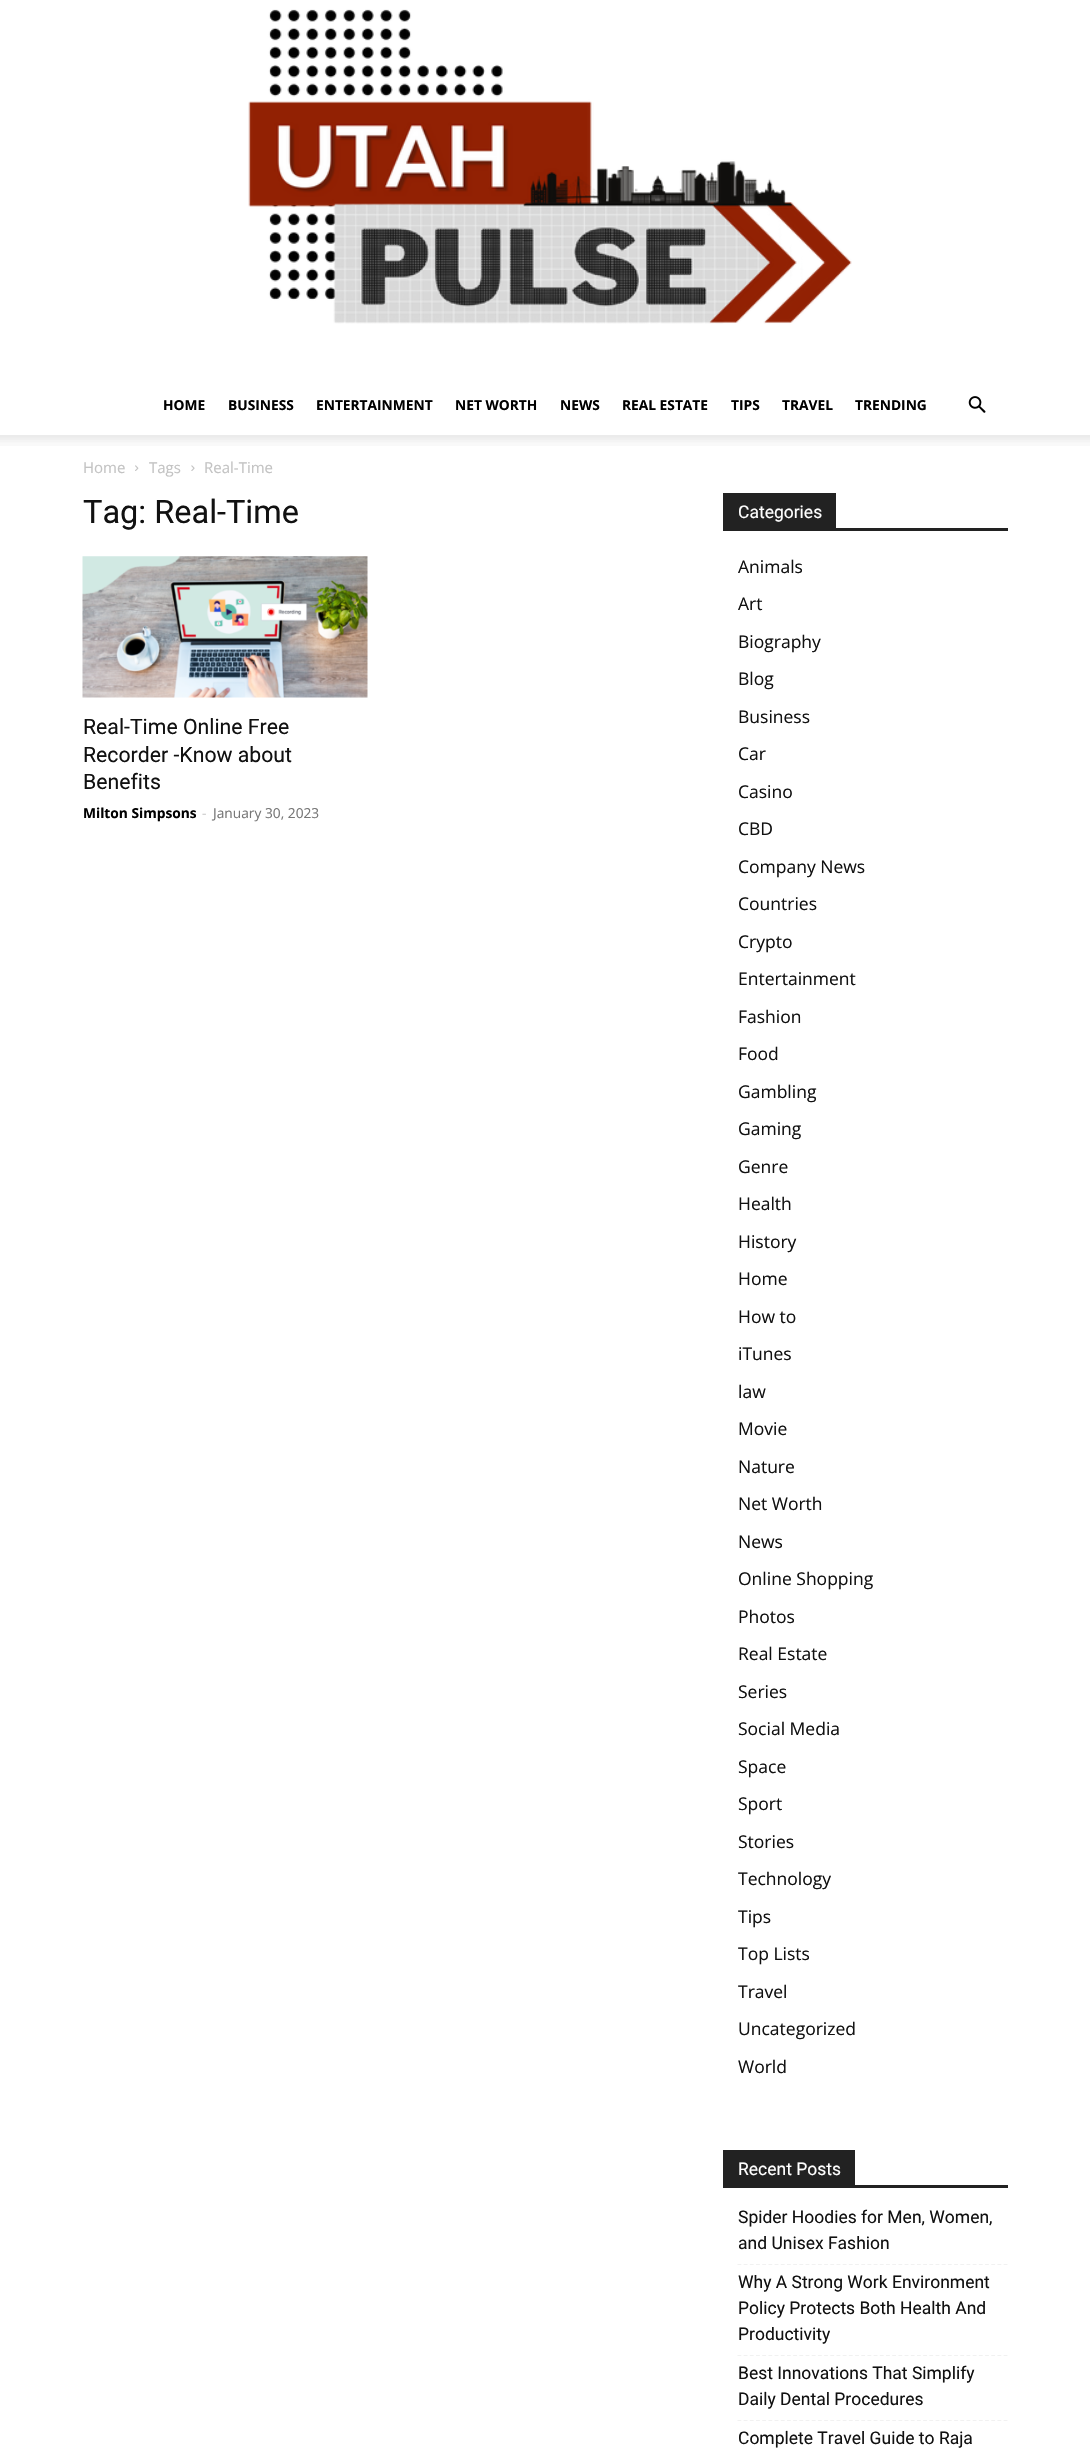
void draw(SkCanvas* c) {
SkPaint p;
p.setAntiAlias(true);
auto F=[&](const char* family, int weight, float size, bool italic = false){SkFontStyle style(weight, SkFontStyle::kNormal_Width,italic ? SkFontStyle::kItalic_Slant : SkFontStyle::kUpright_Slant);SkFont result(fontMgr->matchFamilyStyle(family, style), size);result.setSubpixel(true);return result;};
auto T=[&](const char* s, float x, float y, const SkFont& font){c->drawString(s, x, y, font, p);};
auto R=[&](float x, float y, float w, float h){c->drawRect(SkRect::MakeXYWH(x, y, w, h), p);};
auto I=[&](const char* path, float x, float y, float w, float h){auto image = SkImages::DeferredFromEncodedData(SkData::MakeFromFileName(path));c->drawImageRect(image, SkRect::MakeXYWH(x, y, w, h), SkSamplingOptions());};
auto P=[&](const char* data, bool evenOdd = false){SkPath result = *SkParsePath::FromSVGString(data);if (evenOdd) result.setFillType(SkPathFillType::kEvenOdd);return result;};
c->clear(0xffffffff);
I("1.png",248,9,604,315);
auto f1 = F("Open Sans",700,13.75);
p.setColor(0xff000000);
T("HOME",163,410,f1);
T("BUSINESS",228,410,f1);
T("ENTERTAINMENT",316,410,f1);
T("NET WORTH",455,410,f1);
T("NEWS",560,410,f1);
T("REAL ESTATE",622,410,f1);
T("TIPS",731,410,f1);
T("TRAVEL",782,410,f1);
T("TRENDING",855,410,f1);
I("2.png",968,396,18,17);
I("3.png",0,435,1090,11);
auto f2 = F("Open Sans",400,15);
p.setColor(0xffc3c3c3);
T("Home",83,473,f2);
I("4.png",135,465,4,6);
T("Tags",149,473,f2);
I("5.png",191,465,4,6);
T("Real-Time",204,473,f2);
auto f3 = F("Roboto",400,32.5);
p.setColor(0xff111111);
T("Tag: Real-Time",83,523,f3);
I("6.png",82,556,286,142);
auto f4 = F("Roboto",400,21.25);
T("Real-Time Online Free",83,734,f4);
T("Recorder -Know about",83,762,f4);
T("Benefits",83,789,f4);
p.setColor(0xff000000);
T("Milton Simpsons",83,818,f1);
auto f5 = F("Open Sans",400,13.75);
p.setColor(0xffcccccc);
T("-",202,818,f5);
p.setColor(0xff767676);
T("January 30, 2023",213,818,f5);
p.setColor(0xff222222);
R(723,528,285,3);
R(723,493,113,35);
auto f6 = F("Roboto",400,17.5);
p.setColor(0xffffffff);
T("Categories",738,518,f6);
auto f7 = F("Open Sans",400,17.5);
p.setColor(0xff111111);
T("Animals",738,573,f7);
T("Art",738,610,f7);
T("Biography",738,648,f7);
T("Blog",738,685,f7);
T("Business",738,723,f7);
T("Car",738,760,f7);
T("Casino",738,798,f7);
T("CBD",738,835,f7);
T("Company News",738,873,f7);
T("Countries",738,910,f7);
T("Crypto",738,948,f7);
T("Entertainment",738,985,f7);
T("Fashion",738,1023,f7);
T("Food",738,1060,f7);
T("Gambling",738,1098,f7);
T("Gaming",738,1135,f7);
T("Genre",738,1173,f7);
T("Health",738,1210,f7);
T("History",738,1248,f7);
T("Home",738,1285,f7);
T("How to",738,1323,f7);
T("iTunes",738,1360,f7);
T("law",738,1398,f7);
T("Movie",738,1435,f7);
T("Nature",738,1473,f7);
T("Net Worth",738,1510,f7);
T("News",738,1548,f7);
T("Online Shopping",738,1585,f7);
T("Photos",738,1623,f7);
T("Real Estate",738,1660,f7);
T("Series",738,1698,f7);
T("Social Media",738,1735,f7);
T("Space",738,1773,f7);
T("Sport",738,1810,f7);
T("Stories",738,1848,f7);
T("Technology",738,1885,f7);
T("Tips",738,1923,f7);
T("Top Lists",738,1960,f7);
T("Travel",738,1998,f7);
T("Uncategorized",738,2035,f7);
T("World",738,2073,f7);
p.setColor(0xff222222);
R(723,2185,285,3);
R(723,2150,132,35);
p.setColor(0xffffffff);
T("Recent Posts",738,2175,f6);
p.setStroke(true);
p.setStrokeWidth(1.2);
p.setColor(0xfff1f1f1);
p.setPathEffect(SkDashPathEffect::Make({{3.75f,2.44f}}, 0));
c->drawPath(P("M737.5 2264.5h270"),p);
p.setPathEffect(nullptr);
p.setStroke(false);
p.setColor(0xff111111);
T("Spider Hoodies for Men, Women,",738,2223,f6);
T("and Unisex Fashion",738,2249,f6);
p.setStroke(true);
p.setColor(0xfff1f1f1);
p.setPathEffect(SkDashPathEffect::Make({{3.75f,2.44f}}, 0));
c->drawPath(P("M737.5 2355.5h270"),p);
p.setPathEffect(nullptr);
p.setStroke(false);
p.setColor(0xff111111);
T("Why A Strong Work Environment",738,2288,f6);
T("Policy Protects Both Health And",738,2314,f6);
T("Productivity",738,2340,f6);
p.setStroke(true);
p.setColor(0xfff1f1f1);
p.setPathEffect(SkDashPathEffect::Make({{3.75f,2.44f}}, 0));
c->drawPath(P("M737.5 2420.5h270"),p);
p.setPathEffect(nullptr);
p.setStroke(false);
p.setColor(0xff111111);
T("Best Innovations That Simplify",738,2379,f6);
T("Daily Dental Procedures",738,2405,f6);
T("Complete Travel Guide to Raja",738,2444,f6);
}
